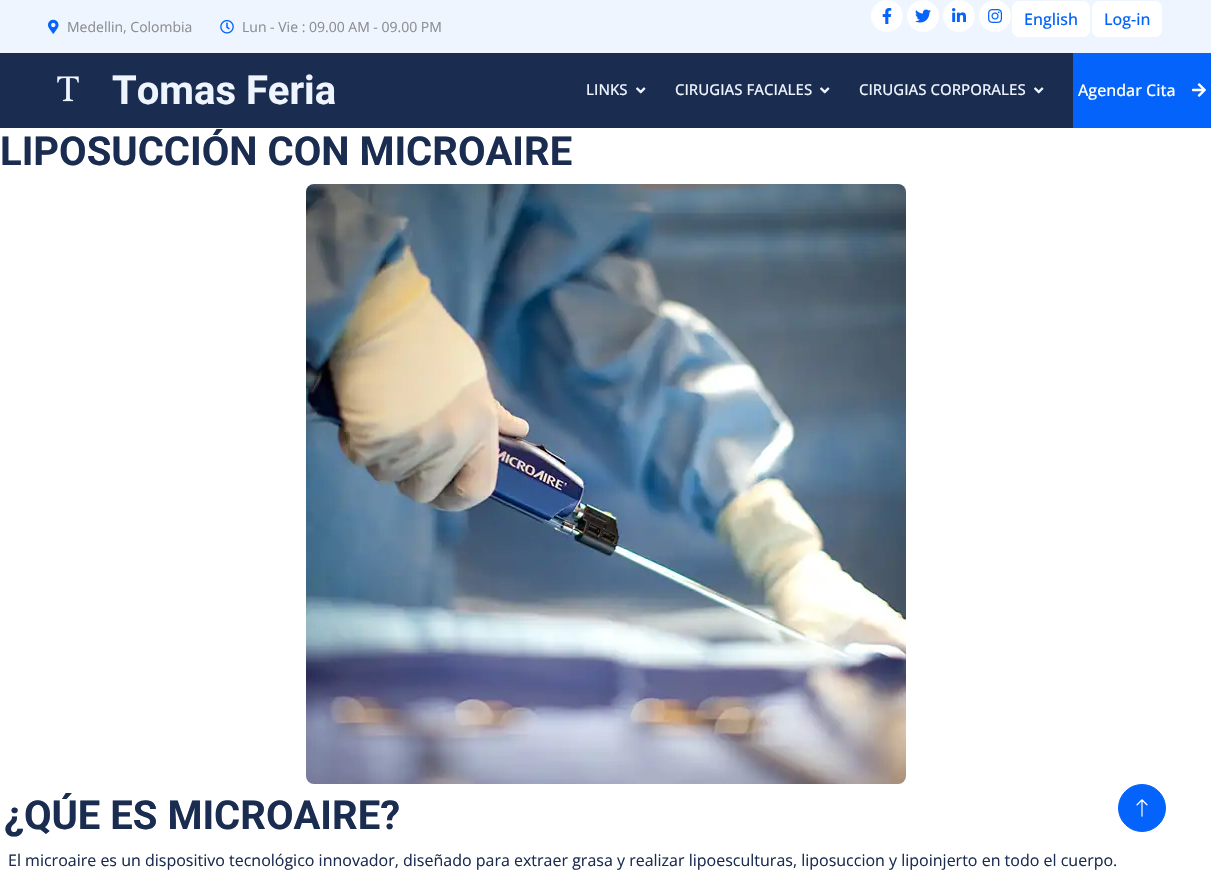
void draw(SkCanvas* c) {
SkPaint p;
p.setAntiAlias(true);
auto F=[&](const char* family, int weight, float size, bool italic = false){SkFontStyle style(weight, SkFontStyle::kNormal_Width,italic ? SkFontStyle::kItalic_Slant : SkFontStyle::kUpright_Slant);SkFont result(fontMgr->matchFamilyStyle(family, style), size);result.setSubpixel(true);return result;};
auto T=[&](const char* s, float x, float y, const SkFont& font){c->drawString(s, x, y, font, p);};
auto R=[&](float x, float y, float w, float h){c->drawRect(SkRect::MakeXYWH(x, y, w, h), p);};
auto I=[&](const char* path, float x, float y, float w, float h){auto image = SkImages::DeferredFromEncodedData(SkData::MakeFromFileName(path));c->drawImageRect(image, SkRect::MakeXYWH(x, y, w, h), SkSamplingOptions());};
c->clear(0xffffffff);
p.setColor(0xffeff5ff);
R(0,0,1211,53);
I("1.png",48,19,11,15);
auto f1 = F("Open Sans",400,14);
p.setColor(0xff8d8e92);
T("Medellin, Colombia",67,32,f1);
I("2.png",220,20,14,14);
T("Lun - Vie : 09.00 AM - 09.00 PM",242,32,f1);
p.setColor(0xffffffff);
c->drawCircle(887,16,16,p);
I("3.png",882,8,10,16);
c->drawCircle(923,16,16,p);
I("4.png",915,9,16,14);
c->drawCircle(959,16,16,p);
I("5.png",952,8,14,14);
c->drawCircle(995,16,16,p);
I("6.png",988,9,15,14);
c->drawRoundRect(SkRect::MakeXYWH(1011.5,.5,79,37),7.5,7.5,p);
p.setStroke(true);
p.setStrokeWidth(1);
p.setColor(0xffeff5ff);
c->drawRoundRect(SkRect::MakeXYWH(1011.5,.5,79,37),7.5,7.5,p);
auto f2 = F("Open Sans",500,16);
p.setStroke(false);
p.setColor(0xff0463fa);
T("English",1024,25,f2);
p.setColor(0xffffffff);
c->drawRoundRect(SkRect::MakeXYWH(1091.5,.5,71,37),7.5,7.5,p);
p.setStroke(true);
p.setColor(0xffeff5ff);
c->drawRoundRect(SkRect::MakeXYWH(1091.5,.5,71,37),7.5,7.5,p);
p.setStroke(false);
p.setColor(0xff0463fa);
T("Log-in",1104,25,f2);
p.setColor(0xff1b2c51);
R(0,53,1073,75);
I("7.png",57,76,22,26);
auto f3 = F("Roboto",700,40);
p.setColor(0xffeff5ff);
T("Tomas Feria",112,104,f3);
auto f4 = F("Open Sans",500,15);
T("LINKS",586,95,f4);
I("8.png",636,87,10,7);
T("CIRUGIAS FACIALES",675,95,f4);
I("8.png",820,87,10,7);
T("CIRUGIAS CORPORALES",859,95,f4);
I("8.png",1034,87,10,7);
p.setColor(0xff0463fa);
R(1073,53,138,75);
p.setColor(0xffffffff);
T("Agendar Cita",1078,96,f2);
I("9.png",1192,83,14,14);
p.setColor(0xff1b2c51);
T("LIPOSUCCIÓN CON MICROAIRE",0,165,f3);
I("10.png",306,184,600,600);
T("¿QÚE ES MICROAIRE?",4,829,f3);
p.setColor(0xff0463fa);
c->drawCircle(1142,808,23.5,p);
p.setStroke(true);
c->drawCircle(1142,808,23.5,p);
I("11.png",1136,799,12,18);
auto f5 = F("Open Sans",400,16);
p.setStroke(false);
p.setColor(0xff1b2c51);
T("El microaire es un dispositivo tecnológico innovador, diseñado para extraer grasa y realizar lipoesculturas, liposuccion y lipoinjerto en todo el cuerpo.",8,866,f5);
}
